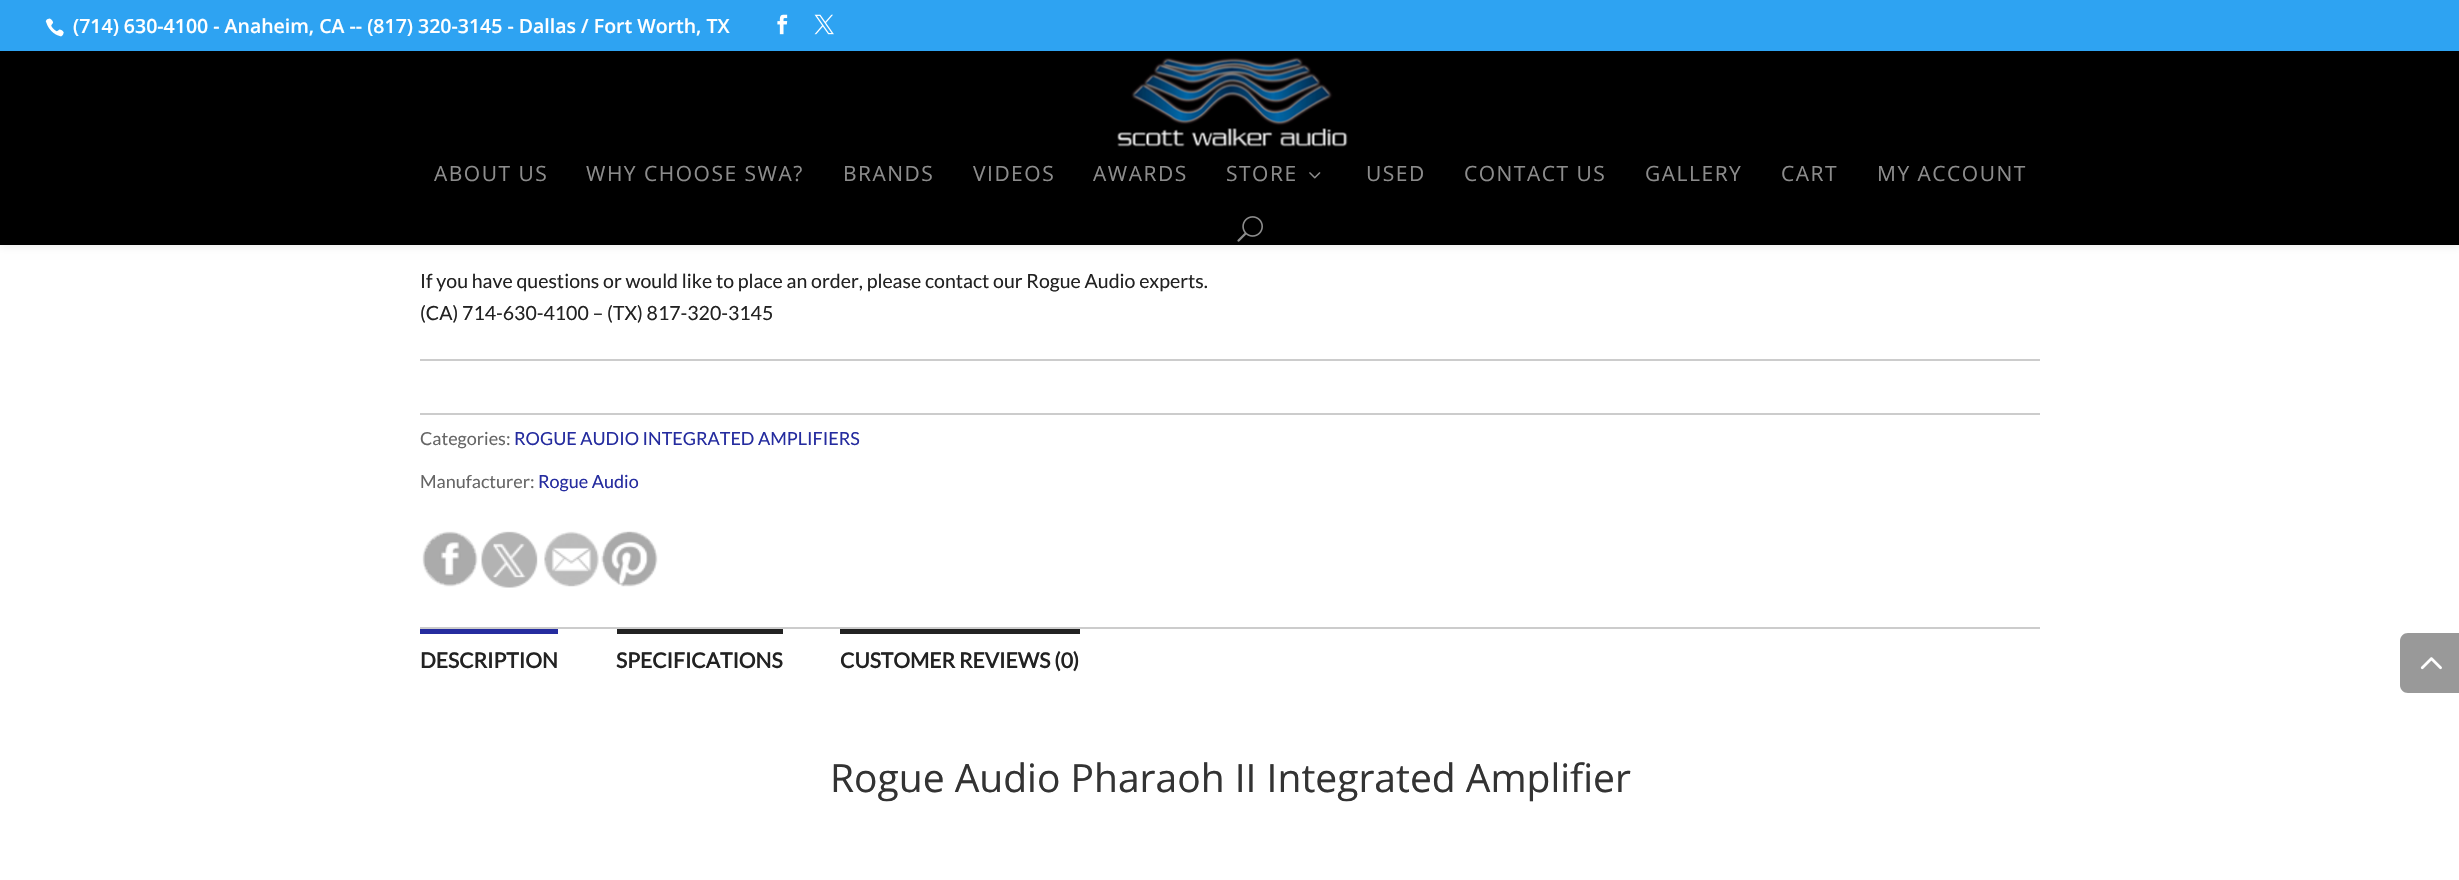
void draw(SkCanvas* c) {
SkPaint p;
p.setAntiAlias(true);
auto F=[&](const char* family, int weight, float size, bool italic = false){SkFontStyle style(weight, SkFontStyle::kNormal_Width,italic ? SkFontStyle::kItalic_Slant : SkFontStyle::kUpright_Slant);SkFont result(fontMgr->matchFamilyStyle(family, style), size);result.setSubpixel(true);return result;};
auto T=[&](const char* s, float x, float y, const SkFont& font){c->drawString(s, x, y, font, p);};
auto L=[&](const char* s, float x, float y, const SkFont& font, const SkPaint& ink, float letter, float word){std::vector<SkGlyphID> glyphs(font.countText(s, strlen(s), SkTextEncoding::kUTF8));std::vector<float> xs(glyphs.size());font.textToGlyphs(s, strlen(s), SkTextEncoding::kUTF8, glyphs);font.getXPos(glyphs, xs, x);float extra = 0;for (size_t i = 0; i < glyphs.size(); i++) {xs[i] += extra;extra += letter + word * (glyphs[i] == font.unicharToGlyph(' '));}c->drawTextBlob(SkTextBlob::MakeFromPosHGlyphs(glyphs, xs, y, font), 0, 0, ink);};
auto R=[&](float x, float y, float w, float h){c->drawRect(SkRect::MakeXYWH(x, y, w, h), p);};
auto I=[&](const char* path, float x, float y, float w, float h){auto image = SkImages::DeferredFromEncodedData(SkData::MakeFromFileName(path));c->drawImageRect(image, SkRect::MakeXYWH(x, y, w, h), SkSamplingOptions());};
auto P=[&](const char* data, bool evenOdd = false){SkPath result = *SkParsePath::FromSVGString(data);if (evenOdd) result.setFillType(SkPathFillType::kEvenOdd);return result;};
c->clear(0xffffffff);
p.setColor(0x1a000000);
p.setMaskFilter(SkMaskFilter::MakeBlur(kNormal_SkBlurStyle, 5));
c->drawRect(SkRect::MakeXYWH(0,51,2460,194),p);
p.setMaskFilter(nullptr);
p.setColor(0xff2ea3f2);
R(0,0,2459,51);
I("1.png",45,18,19,19);
auto f1 = F("Open Sans",600,19.5);
p.setColor(0xffffffff);
T("(714) 630-4100 - Anaheim, CA -- (817) 320-3145 - Dallas / Fort Worth, TX",73,33,f1);
I("2.png",777,14,11,21);
I("3.png",814,14,20,21);
p.setColor(0xff000000);
R(0,51,2459,194);
I("4.png",1117,57,231,90);
auto f2 = F("Open Sans",400,21);
p.setColor(0xff8c8c8c);
L("ABOUT US",434,181,f2,p,1.5,0);
L("WHY CHOOSE SWA?",586,181,f2,p,1.5,0);
L("BRANDS",843,181,f2,p,1.5,0);
L("VIDEOS",973,181,f2,p,1.5,0);
L("AWARDS",1093,181,f2,p,1.5,0);
L("STORE",1226,181,f2,p,1.5,0);
I("5.png",1309,172,12,7);
L("USED",1366,181,f2,p,1.5,0);
L("CONTACT US",1464,181,f2,p,1.5,0);
L("GALLERY",1645,181,f2,p,1.5,0);
L("CART",1781,181,f2,p,1.5,0);
L("MY ACCOUNT",1877,181,f2,p,1.5,0);
I("6.png",1237,216,26,26);
auto f3 = F("Lato",400,19.5);
p.setColor(0xff222222);
T("If you have questions or would like to place an order, please contact our Rogue Audio experts.",420,288,f3);
T("(CA) 714-630-4100 – (TX) 817-320-3145",420,320,f3);
p.setColor(0xffcccccc);
R(420,359,1620,2);
R(420,413,1620,2);
auto f4 = F("Lato",400,18);
p.setColor(0xff666666);
T("Categories:",420,445,f4);
p.setColor(0xff252c9f);
T("ROGUE AUDIO INTEGRATED AMPLIFIERS",514,445,f4);
p.setColor(0xff666666);
T("Manufacturer:",420,488,f4);
p.setColor(0xff252c9f);
T("Rogue Audio",538,488,f4);
I("7.png",422,531,56,56);
I("8.png",481,531,57,57);
I("9.png",544,531,55,56);
I("10.png",601,531,57,56);
p.setColor(0xffcccccc);
R(420,627,1620,2);
p.setColor(0xff252c9f);
R(420,629,138,5);
auto f5 = F("Lato",700,21);
p.setColor(0xff222222);
T("DESCRIPTION",420,668,f5);
R(617,629,166,5);
T("SPECIFICATIONS",616,668,f5);
R(840,629,240,5);
T("CUSTOMER REVIEWS (0)",840,668,f5);
auto f6 = F("Open Sans",400,39);
p.setColor(0xff333333);
T("Rogue Audio Pharaoh II Integrated Amplifier",830,792,f6);
p.setColor(0xff999999);
c->drawPath(P("M2408 633h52v60h-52c-4.5 0-8-3.5-8-8v-44c0-4.5 3.5-8 8-8z"),p);
I("11.png",2420,657,22,13);
}
